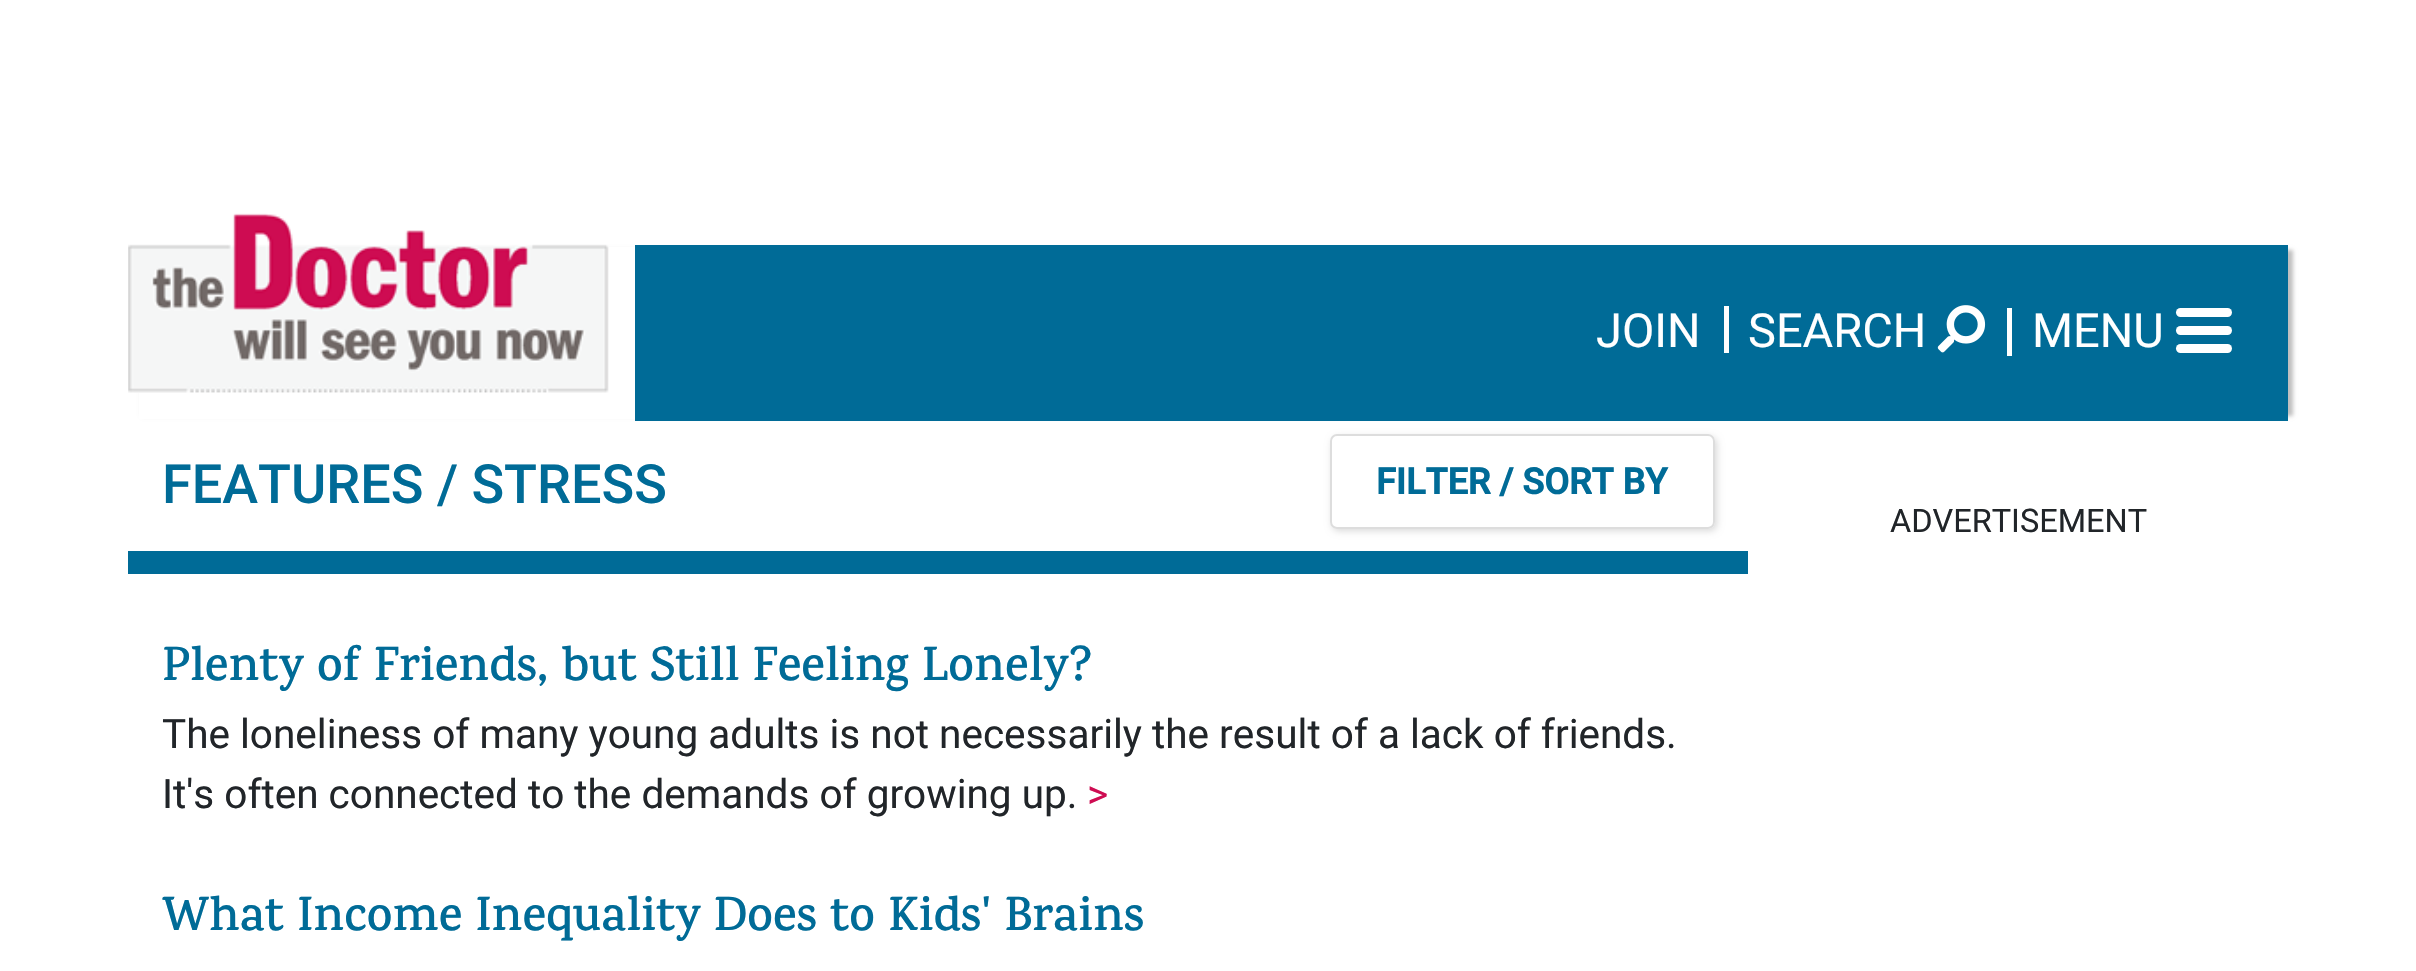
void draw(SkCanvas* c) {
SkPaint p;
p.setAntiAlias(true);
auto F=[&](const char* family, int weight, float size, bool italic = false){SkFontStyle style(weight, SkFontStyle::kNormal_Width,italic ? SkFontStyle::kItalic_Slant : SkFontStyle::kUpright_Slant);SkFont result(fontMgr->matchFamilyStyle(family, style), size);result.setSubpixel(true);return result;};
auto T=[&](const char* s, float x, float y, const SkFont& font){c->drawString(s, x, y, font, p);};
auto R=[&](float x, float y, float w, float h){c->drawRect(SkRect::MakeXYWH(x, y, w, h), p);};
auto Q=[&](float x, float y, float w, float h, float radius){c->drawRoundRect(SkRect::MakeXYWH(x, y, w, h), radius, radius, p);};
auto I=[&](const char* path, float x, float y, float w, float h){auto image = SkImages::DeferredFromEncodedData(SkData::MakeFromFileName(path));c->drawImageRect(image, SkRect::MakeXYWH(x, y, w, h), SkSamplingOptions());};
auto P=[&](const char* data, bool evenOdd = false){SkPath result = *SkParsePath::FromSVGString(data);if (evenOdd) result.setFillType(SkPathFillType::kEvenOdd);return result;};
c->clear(0xffffffff);
p.setColor(0x40000000);
p.setMaskFilter(SkMaskFilter::MakeBlur(kNormal_SkBlurStyle, 2));
c->drawRect(SkRect::MakeXYWH(142,250,2151,166),p);
p.setMaskFilter(nullptr);
p.setColor(0xff006b97);
R(635,245,1653,176);
p.setColor(0xffffffff);
R(139,247,496,172);
I("1.png",128,213,481,180);
auto f1 = F("Roboto",400,47);
T("JOIN",1596,347,f1);
R(1724,306,5,47);
T("SEARCH",1748,347,f1);
I("2.png",1937,305,49,48);
R(2007,308,5,48);
T("MENU",2032,347,f1);
Q(2176,326,56,9,4.5);
Q(2176,308,56,9,4.5);
Q(2176,344,56,9,4.5);
p.setColor(0xff006b97);
R(128,551,1620,23);
auto f2 = F("Roboto",500,54);
T("FEATURES / STRESS",162,503,f2);
c->save();
c->clipPath(P("M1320 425h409v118h-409zm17 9h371c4 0 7 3 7 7v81c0 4-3 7-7 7h-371c-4 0-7-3-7-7v-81c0-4 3-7 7-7z",true),true);
p.setColor(0x26000000);
p.setMaskFilter(SkMaskFilter::MakeBlur(kNormal_SkBlurStyle, 3.5));
c->drawRoundRect(SkRect::MakeXYWH(1332,437,385,94),7,7,p);
p.setMaskFilter(nullptr);
c->restore();
p.setStroke(true);
p.setStrokeWidth(2);
p.setColor(0xffdddddd);
c->drawRoundRect(SkRect::MakeXYWH(1331,435,383,93),6,6,p);
auto f3 = F("Roboto",700,36);
p.setStroke(false);
p.setColor(0xff006b97);
T("FILTER / SORT BY",1376,494,f3);
auto f4 = F("Karma",600,48.6);
T("Plenty of Friends, but Still Feeling Lonely?",162,680,f4);
auto f5 = F("Roboto",400,40.5);
p.setColor(0xff212529);
T("The loneliness of many young adults is not necessarily the result of a lack of friends.",162,748,f5);
T("It's often connected to the demands of growing up.",162,808,f5);
p.setColor(0xffce0c52);
T(">",1087,808,f5);
p.setColor(0xff006b97);
T("What Income Inequality Does to Kids' Brains",162,930,f4);
auto f6 = F("Roboto",400,32.5);
p.setColor(0xff212529);
T("ADVERTISEMENT",1890,532,f6);
}
